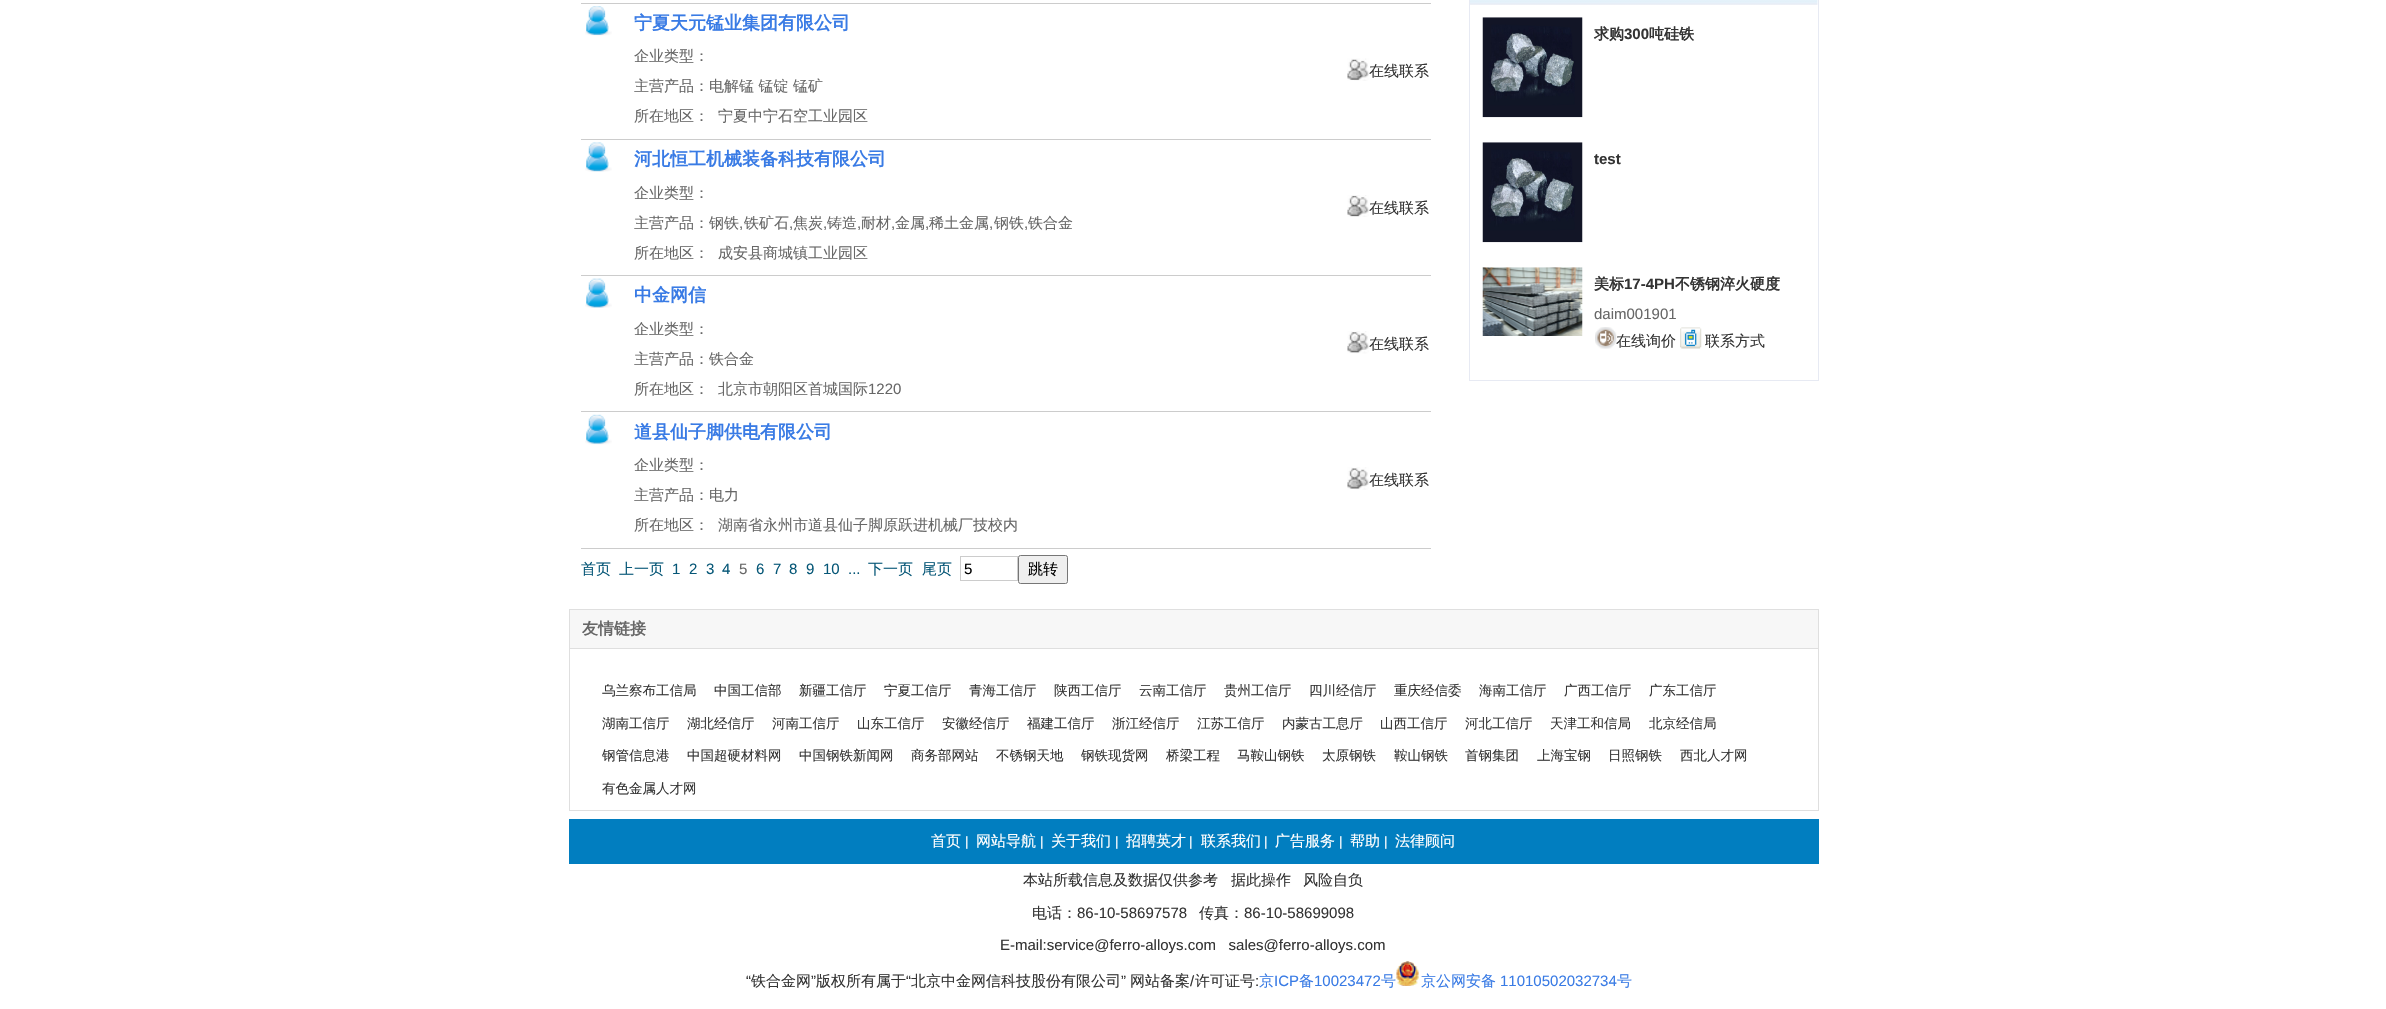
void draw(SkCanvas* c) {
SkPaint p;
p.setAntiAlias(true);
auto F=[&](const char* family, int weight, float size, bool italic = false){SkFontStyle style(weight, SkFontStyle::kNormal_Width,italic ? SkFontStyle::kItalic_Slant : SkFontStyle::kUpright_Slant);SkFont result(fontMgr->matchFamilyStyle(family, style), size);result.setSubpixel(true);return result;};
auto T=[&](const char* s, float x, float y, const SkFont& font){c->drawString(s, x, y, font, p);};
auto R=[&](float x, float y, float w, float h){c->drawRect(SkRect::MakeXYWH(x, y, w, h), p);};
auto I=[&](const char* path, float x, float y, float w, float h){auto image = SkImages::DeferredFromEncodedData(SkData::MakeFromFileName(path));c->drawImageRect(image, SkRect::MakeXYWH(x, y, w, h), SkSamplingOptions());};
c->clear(0xffffffff);
p.setColor(0xffcccccc);
R(581,3,850,1);
R(581,139,850,1);
I("1.png",585,6,27,30);
auto f1 = F("WenQuanYi Zen Hei",700,18);
p.setColor(0xff397be5);
T("宁夏天元锰业集团有限公司",634,29,f1);
auto f2 = F("WenQuanYi Zen Hei",500,15);
p.setColor(0xff676767);
T("企业类型：",634,61,f2);
T("主营产品：电解锰 锰锭 锰矿",634,91,f2);
T("所在地区：",634,121,f2);
T("宁夏中宁石空工业园区",718,121,f2);
I("2.png",1347,58,22,23);
p.setColor(0xff343434);
T("在线联系",1369,76,f2);
p.setColor(0xffcccccc);
R(581,275,850,1);
I("3.png",585,142,27,30);
p.setColor(0xff397be5);
T("河北恒工机械装备科技有限公司",634,165,f1);
p.setColor(0xff676767);
T("企业类型：",634,198,f2);
T("主营产品：钢铁",634,228,f2);
auto f3 = F("Liberation Sans",400,15);
T(",",739,228,f3);
T("铁矿石",744,228,f2);
T(",",789,228,f3);
T("焦炭",793,228,f2);
T(",",823,228,f3);
T("铸造",827,228,f2);
T(",",857,228,f3);
T("耐材",861,228,f2);
T(",",891,228,f3);
T("金属",895,228,f2);
T(",",925,228,f3);
T("稀土金属",929,228,f2);
T(",",989,228,f3);
T("钢铁",994,228,f2);
T(",",1024,228,f3);
T("铁合金",1028,228,f2);
T("所在地区：",634,258,f2);
T("成安县商城镇工业园区",718,258,f2);
I("4.png",1347,195,22,22);
p.setColor(0xff343434);
T("在线联系",1369,213,f2);
p.setColor(0xffcccccc);
R(581,411,850,1);
I("5.png",585,278,27,30);
p.setColor(0xff397be5);
T("中金网信",634,301,f1);
p.setColor(0xff676767);
T("企业类型：",634,334,f2);
T("主营产品：铁合金",634,364,f2);
T("所在地区：",634,394,f2);
T("北京市朝阳区首城国际",718,394,f2);
T("1220",868,394,f3);
I("6.png",1347,331,22,23);
p.setColor(0xff343434);
T("在线联系",1369,349,f2);
p.setColor(0xffcccccc);
R(581,548,850,1);
I("7.png",585,414,27,31);
p.setColor(0xff397be5);
T("道县仙子脚供电有限公司",634,438,f1);
p.setColor(0xff676767);
T("企业类型：",634,470,f2);
T("主营产品：电力",634,500,f2);
T("所在地区：",634,530,f2);
T("湖南省永州市道县仙子脚原跃进机械厂技校内",718,530,f2);
I("8.png",1347,467,22,23);
p.setColor(0xff343434);
T("在线联系",1369,485,f2);
p.setColor(0xff065777);
T("首页",581,574,f2);
T("上一页",619,574,f2);
T("1",672,574,f3);
T("2",689,574,f3);
T("3",706,574,f3);
T("4",722,574,f3);
p.setColor(0xff676767);
T("5",739,574,f3);
p.setColor(0xff065777);
T("6",756,574,f3);
T("7",773,574,f3);
T("8",789,574,f3);
T("9",806,574,f3);
T("10",823,574,f3);
T("...",848,574,f3);
T("下一页",868,574,f2);
T("尾页",922,574,f2);
p.setStroke(true);
p.setStrokeWidth(1);
p.setColor(0xffcccccc);
c->drawRect(SkRect::MakeXYWH(960.5,556.5,57,24),p);
p.setStroke(false);
p.setColor(0xff000000);
T("5",964,574,f3);
p.setColor(0xffefefef);
c->drawRoundRect(SkRect::MakeXYWH(1018.5,555.5,49,28),2,2,p);
p.setStroke(true);
p.setColor(0xff767676);
c->drawRoundRect(SkRect::MakeXYWH(1018.5,555.5,49,28),2,2,p);
p.setStroke(false);
p.setColor(0xff000000);
T("跳转",1028,574,f2);
p.setStroke(true);
p.setColor(0xffe7eaf3);
c->drawRect(SkRect::MakeXYWH(1469.5,-.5,349,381),p);
I("9.png",1470,0,348,5);
I("10.png",1482,17,101,101);
auto f4 = F("WenQuanYi Zen Hei",700,15);
p.setStroke(false);
p.setColor(0xff343434);
T("求购",1594,39,f4);
auto f5 = F("Liberation Sans",700,15);
T("300",1624,39,f5);
T("吨硅铁",1649,39,f4);
I("10.png",1482,142,101,101);
T("test",1594,164,f5);
I("11.png",1482,267,101,69);
T("美标",1594,289,f4);
T("17-4PH",1624,289,f5);
T("不锈钢淬火硬度",1675,289,f4);
p.setColor(0xff676767);
T("daim001901",1594,319,f3);
I("12.png",1595,327,22,22);
p.setColor(0xff343434);
T("在线询价",1616,346,f2);
I("13.png",1680,327,22,22);
T("联系方式",1705,346,f2);
p.setStroke(true);
p.setColor(0xffdfdfdf);
c->drawRect(SkRect::MakeXYWH(569.5,609.5,1249,201),p);
p.setStroke(false);
p.setColor(0xfff7f7f7);
R(570,610,1248,38);
p.setColor(0xffdfdfdf);
R(570,648,1248,1);
auto f6 = F("WenQuanYi Zen Hei",700,16);
p.setColor(0xff676767);
T("友情链接",582,634,f6);
auto f7 = F("WenQuanYi Zen Hei",500,13.5);
p.setColor(0xff343434);
T("乌兰察布工信局",602,695,f7);
T("中国工信部",714,695,f7);
T("新疆工信厅",799,695,f7);
T("宁夏工信厅",884,695,f7);
T("青海工信厅",969,695,f7);
T("陕西工信厅",1054,695,f7);
T("云南工信厅",1139,695,f7);
T("贵州工信厅",1224,695,f7);
T("四川经信厅",1309,695,f7);
T("重庆经信委",1394,695,f7);
T("海南工信厅",1479,695,f7);
T("广西工信厅",1564,695,f7);
T("广东工信厅",1649,695,f7);
T("湖南工信厅",602,728,f7);
T("湖北经信厅",687,728,f7);
T("河南工信厅",772,728,f7);
T("山东工信厅",857,728,f7);
T("安徽经信厅",942,728,f7);
T("福建工信厅",1027,728,f7);
T("浙江经信厅",1112,728,f7);
T("江苏工信厅",1197,728,f7);
T("内蒙古工息厅",1282,728,f7);
T("山西工信厅",1380,728,f7);
T("河北工信厅",1465,728,f7);
T("天津工和信局",1550,728,f7);
T("北京经信局",1649,728,f7);
T("钢管信息港",602,760,f7);
T("中国超硬材料网",687,760,f7);
T("中国钢铁新闻网",799,760,f7);
T("商务部网站",911,760,f7);
T("不锈钢天地",996,760,f7);
T("钢铁现货网",1081,760,f7);
T("桥梁工程",1166,760,f7);
T("马鞍山钢铁",1237,760,f7);
T("太原钢铁",1322,760,f7);
T("鞍山钢铁",1394,760,f7);
T("首钢集团",1465,760,f7);
T("上海宝钢",1537,760,f7);
T("日照钢铁",1608,760,f7);
T("西北人才网",1680,760,f7);
T("有色金属人才网",602,793,f7);
p.setColor(0xff017ec0);
R(569,819,1250,45);
p.setColor(0xffffffff);
T("首页",931,846,f2);
auto f8 = F("Liberation Sans",400,13.5);
T("|",965,846,f8);
T("网站导航",976,846,f2);
T("|",1040,846,f8);
T("关于我们",1051,846,f2);
T("|",1115,846,f8);
T("招聘英才",1126,846,f2);
T("|",1189,846,f8);
T("联系我们",1201,846,f2);
T("|",1264,846,f8);
T("广告服务",1275,846,f2);
T("|",1339,846,f8);
T("帮助",1350,846,f2);
T("|",1384,846,f8);
T("法律顾问",1395,846,f2);
p.setColor(0xff343434);
T("本站所载信息及数据仅供参考",1023,885,f2);
T("据此操作",1231,885,f2);
T("风险自负",1303,885,f2);
T("电话：",1032,918,f2);
T("86-10-58697578",1077,918,f3);
T("传真：",1199,918,f2);
T("86-10-58699098",1244,918,f3);
T("E-mail:service@ferro-alloys.com   sales@ferro-alloys.com",1000,950,f3);
T("“",746,986,f3);
T("铁合金网",751,986,f2);
T("”",811,986,f3);
T("版权所有属于",816,986,f2);
T("“",906,986,f3);
T("北京中金网信科技股份有限公司",911,986,f2);
T("”",1121,986,f3);
T("网站备案",1130,986,f2);
T("/",1190,986,f3);
T("许可证号",1195,986,f2);
T(":",1255,986,f3);
p.setColor(0xff397be5);
T("京",1259,986,f2);
T("ICP",1274,986,f3);
T("备",1299,986,f2);
T("10023472",1314,986,f3);
T("号",1381,986,f2);
I("14.png",1396,961,23,25);
T("京公网安备",1421,986,f2);
T("11010502032734",1500,986,f3);
T("号",1617,986,f2);
}
